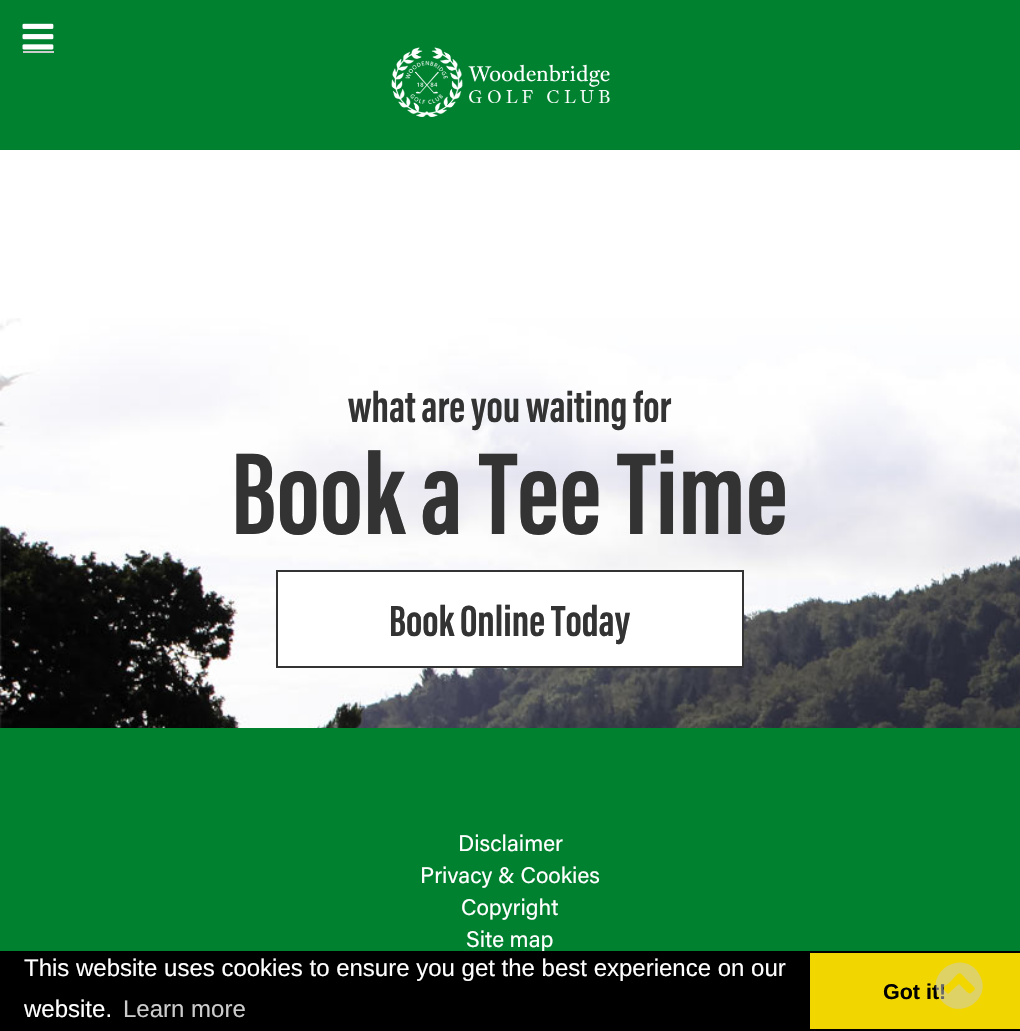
void draw(SkCanvas* c) {
SkPaint p;
p.setAntiAlias(true);
auto F=[&](const char* family, int weight, float size, bool italic = false){SkFontStyle style(weight, SkFontStyle::kNormal_Width,italic ? SkFontStyle::kItalic_Slant : SkFontStyle::kUpright_Slant);SkFont result(fontMgr->matchFamilyStyle(family, style), size);result.setSubpixel(true);return result;};
auto T=[&](const char* s, float x, float y, const SkFont& font){c->drawString(s, x, y, font, p);};
auto R=[&](float x, float y, float w, float h){c->drawRect(SkRect::MakeXYWH(x, y, w, h), p);};
auto I=[&](const char* path, float x, float y, float w, float h){auto image = SkImages::DeferredFromEncodedData(SkData::MakeFromFileName(path));c->drawImageRect(image, SkRect::MakeXYWH(x, y, w, h), SkSamplingOptions());};
auto P=[&](const char* data, bool evenOdd = false){SkPath result = *SkParsePath::FromSVGString(data);if (evenOdd) result.setFillType(SkPathFillType::kEvenOdd);return result;};
c->clear(0xffffffff);
p.setColor(0xff00812f);
R(0,0,1020,150);
I("1.png",22,23,32,27);
p.setColor(0xffcccccc);
R(23,51,31,2);
I("2.png",391,47,219,70);
I("3.png",0,318,1020,410);
auto f1 = F("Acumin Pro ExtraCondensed",700,45);
p.setColor(0xff333333);
T("what are you waiting for",348,422,f1);
auto f2 = F("Acumin Pro ExtraCondensed",700,120);
T("Book a Tee Time",231,534,f2);
p.setColor(0xffffffff);
c->drawRect(SkRect::MakeXYWH(277,571,466,96),p);
p.setStroke(true);
p.setStrokeWidth(2);
p.setColor(0xff333333);
c->drawRect(SkRect::MakeXYWH(277,571,466,96),p);
p.setStroke(false);
T("Book Online Today",389,636,f1);
p.setColor(0xff00812f);
R(0,728,1020,223);
auto f3 = F("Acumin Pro",400,22.5);
p.setColor(0xffffffff);
T("Disclaimer",458,851,f3);
T("Privacy & Cookies",420,883,f3);
T("Copyright",461,915,f3);
T("Site map",466,947,f3);
p.setColor(0xff000000);
R(0,951,1020,80);
auto f4 = F("Liberation Sans",400,24);
p.setColor(0xffffffff);
T("This website uses cookies to ensure you get the best experience on our",24,976,f4);
T("website.",24,1017,f4);
p.setColor(0xffcccccc);
T("Learn more",123,1017,f4);
p.setColor(0xfff1d600);
R(810,953,210,76);
auto f5 = F("Liberation Sans",700,21.5);
p.setColor(0xff000000);
T("Got it!",883,999,f5);
p.setColor(0x80cbcbcb);
c->drawPath(P("M971 993c6-5 5-4-1-10c-13-13-8-13-21 0c-4 3-8 4-4 8c3 3 3 4 6 0l8-7l6 6c1 1 4 5 6 3zm8-19c16 26-24 50-40 23c-15-26 25-49 40-23z"),p);
}
